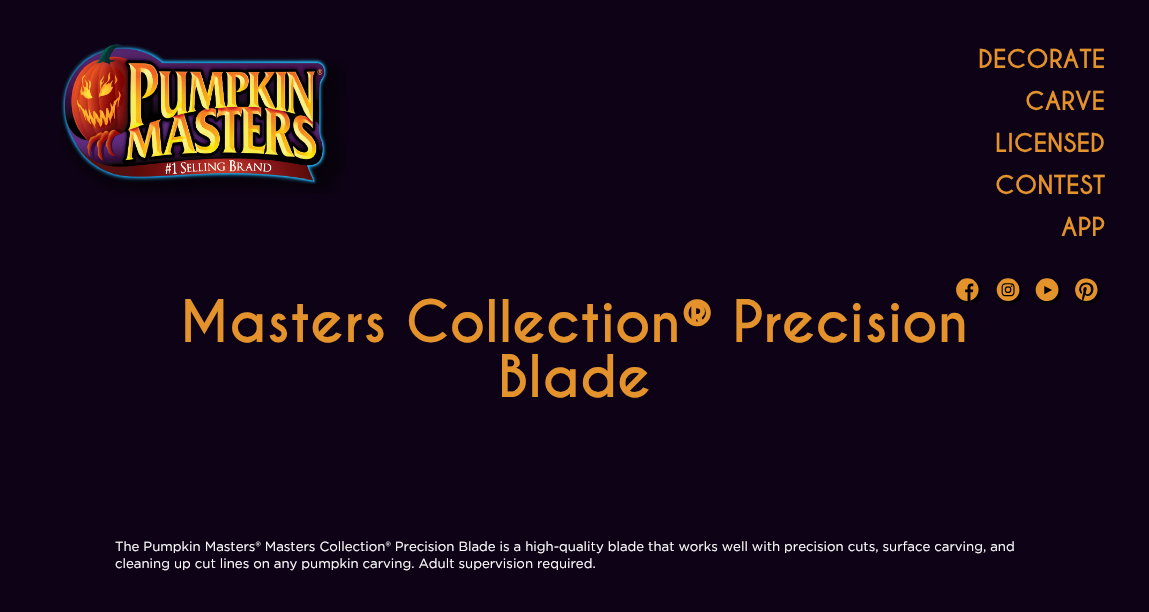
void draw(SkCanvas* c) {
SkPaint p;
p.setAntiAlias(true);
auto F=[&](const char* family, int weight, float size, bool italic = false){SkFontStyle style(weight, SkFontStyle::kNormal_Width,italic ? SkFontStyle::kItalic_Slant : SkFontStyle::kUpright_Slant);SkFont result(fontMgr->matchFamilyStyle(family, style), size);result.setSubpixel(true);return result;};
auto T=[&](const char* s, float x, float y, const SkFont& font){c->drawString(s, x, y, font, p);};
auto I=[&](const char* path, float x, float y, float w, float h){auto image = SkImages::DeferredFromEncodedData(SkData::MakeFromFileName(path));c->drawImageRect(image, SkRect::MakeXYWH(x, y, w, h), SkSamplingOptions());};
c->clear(0xff0e0216);
I("1.png",60,44,287,150);
auto f1 = F("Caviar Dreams",700,24.5);
p.setColor(0xffe4932c);
T("DECORATE",978,68,f1);
T("CARVE",1025,110,f1);
T("LICENSED",995,152,f1);
T("CONTEST",995,194,f1);
T("APP",1061,236,f1);
auto f2 = F("Caviar Dreams",700,55);
T("Masters Collection® Precision",180,342,f2);
I("2.png",956,278,26,27);
I("3.png",996,278,27,27);
I("4.png",1035,278,27,27);
I("5.png",1075,278,26,27);
T("Blade",498,397,f2);
auto f3 = F("Gotham",400,13.2);
p.setColor(0xffffffff);
T("The Pumpkin Masters® Masters Collection® Precision Blade is a high-quality blade that works well with precision cuts, surface carving, and",115,551,f3);
T("cleaning up cut lines on any pumpkin carving. Adult supervision required.",115,568,f3);
}
